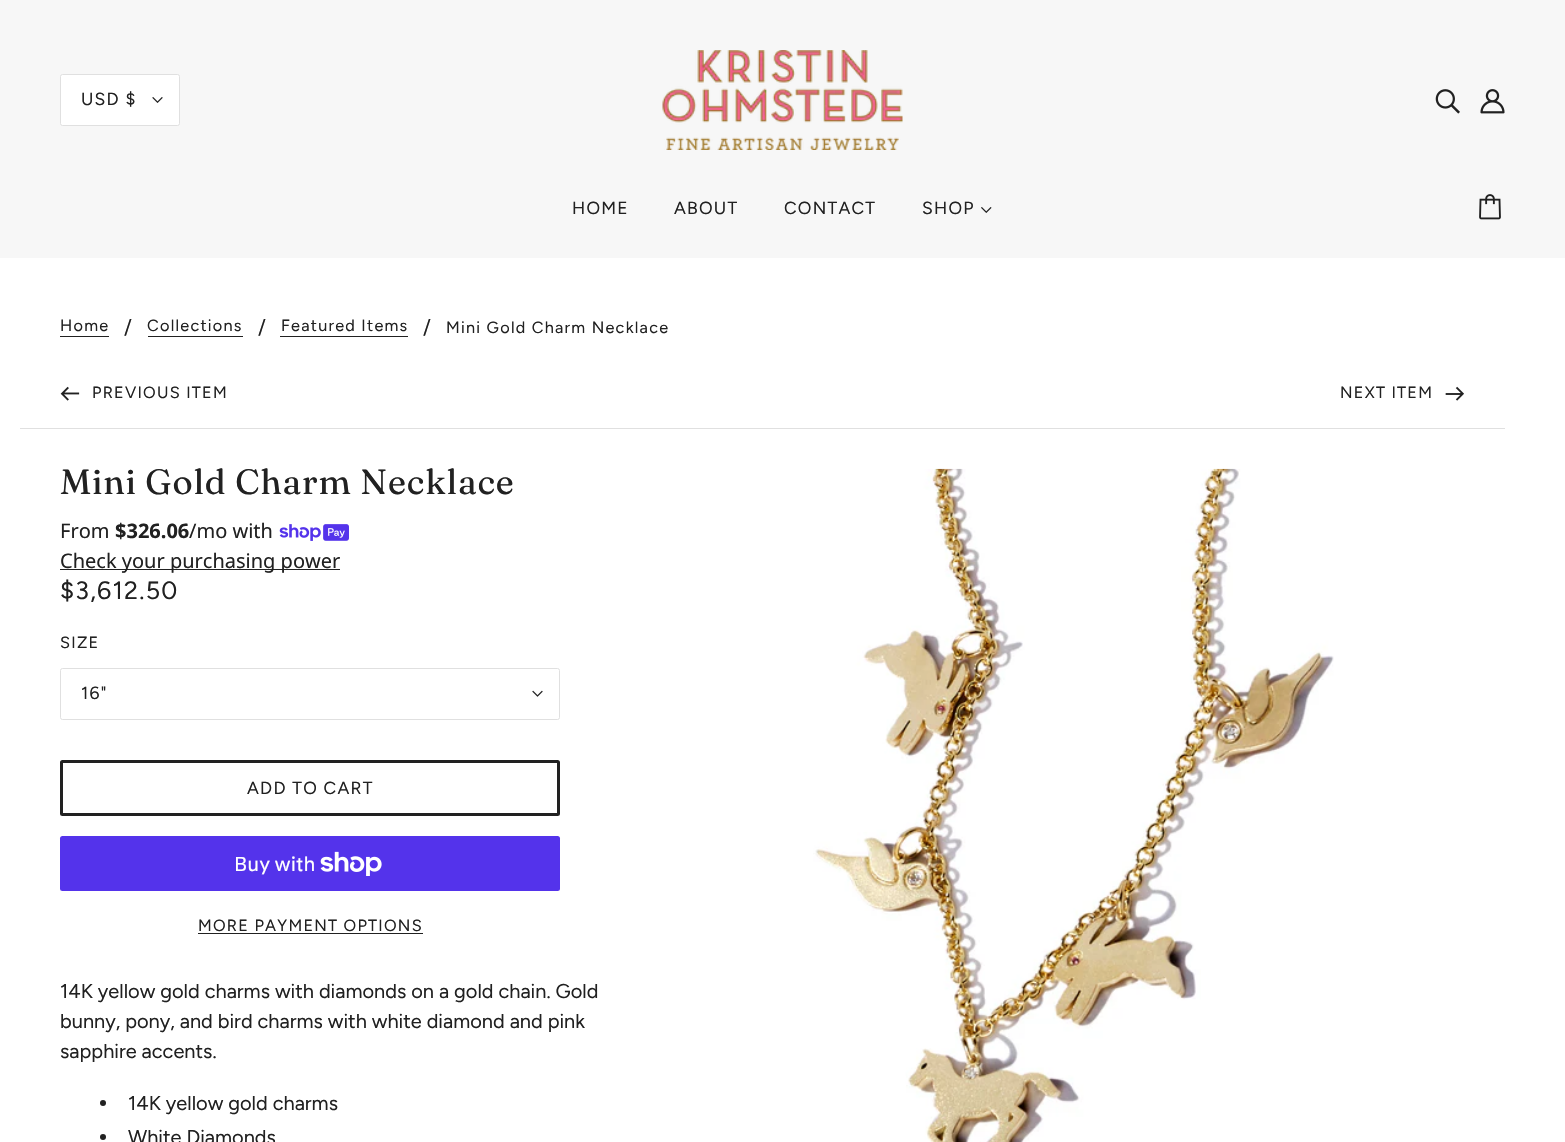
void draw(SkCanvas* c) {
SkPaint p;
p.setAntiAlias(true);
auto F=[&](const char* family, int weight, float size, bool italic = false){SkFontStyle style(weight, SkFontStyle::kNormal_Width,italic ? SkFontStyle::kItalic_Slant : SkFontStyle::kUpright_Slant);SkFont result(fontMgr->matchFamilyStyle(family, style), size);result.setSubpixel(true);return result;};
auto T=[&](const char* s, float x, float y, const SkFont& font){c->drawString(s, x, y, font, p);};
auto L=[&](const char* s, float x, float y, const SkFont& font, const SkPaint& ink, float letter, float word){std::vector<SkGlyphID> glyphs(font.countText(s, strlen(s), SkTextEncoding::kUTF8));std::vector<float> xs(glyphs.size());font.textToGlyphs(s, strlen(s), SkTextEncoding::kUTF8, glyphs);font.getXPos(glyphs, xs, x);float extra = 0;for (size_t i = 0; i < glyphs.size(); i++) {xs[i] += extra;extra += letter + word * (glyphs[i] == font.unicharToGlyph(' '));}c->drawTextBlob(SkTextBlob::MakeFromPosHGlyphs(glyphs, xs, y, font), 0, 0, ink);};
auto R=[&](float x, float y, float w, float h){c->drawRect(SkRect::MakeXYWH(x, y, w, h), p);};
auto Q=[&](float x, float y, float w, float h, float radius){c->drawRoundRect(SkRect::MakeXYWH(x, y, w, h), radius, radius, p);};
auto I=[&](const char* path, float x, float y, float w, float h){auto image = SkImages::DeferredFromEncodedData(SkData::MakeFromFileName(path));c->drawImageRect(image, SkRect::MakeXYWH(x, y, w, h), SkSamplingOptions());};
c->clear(0xffffffff);
p.setColor(0xfff7f7f7);
R(0,0,1565,258);
p.setColor(0xffffffff);
c->drawRoundRect(SkRect::MakeXYWH(60.5,74.5,119,51),2,2,p);
p.setStroke(true);
p.setStrokeWidth(1);
p.setColor(0xffe0e0e0);
c->drawRoundRect(SkRect::MakeXYWH(60.5,74.5,119,51),2,2,p);
auto f1 = F("Figtree",400,17.5);
p.setStroke(false);
p.setColor(0xff212121);
L("USD $",81,105,f1,p,1.25,0);
I("1.png",152,97,11,6);
I("2.png",662,50,241,100);
I("3.png",1435,89,25,25);
I("4.png",1480,89,25,25);
L("HOME",572,214,f1,p,1.25,0);
L("ABOUT",674,214,f1,p,1.25,0);
L("CONTACT",784,214,f1,p,1.25,0);
L("SHOP",922,214,f1,p,1.25,0);
I("5.png",981,207,11,6);
I("6.png",1479,194,22,26);
auto f2 = F("Figtree",400,16.25);
L("Home",60,331,f2,p,1.25,0);
R(60,336,49,1);
auto f3 = F("Figtree",400,20);
T("/",124,334,f3);
L("Collections",147,331,f2,p,1.25,0);
R(148,336,95,1);
T("/",258,334,f3);
L("Featured Items",281,331,f2,p,1.25,0);
R(280,336,128,1);
T("/",423,334,f3);
L("Mini Gold Charm Necklace",446,333,f2,p,1.25,0);
p.setColor(0xffe0e0e0);
R(20,428,1485,1);
I("7.png",60,386,20,15);
p.setColor(0xff212121);
L("PREVIOUS ITEM",92,398,f2,p,1.25,0);
L("NEXT ITEM",1340,398,f2,p,1.25,0);
I("8.png",1445,386,19,15);
auto f4 = F("Fraunces",400,35);
L("Mini Gold Charm Necklace",60,494,f4,p,.9,0);
I("9.png",813,468,521,674);
auto f5 = F("Noto Sans",400,20);
T("From",60,538,f5);
auto f6 = F("Noto Sans",700,20);
T("$326.06",115,538,f6);
T("/mo with",189,538,f5);
I("10.png",279,524,70,17);
R(60,569,280,1);
T("Check your purchasing power",60,568,f5);
auto f7 = F("Figtree",400,25);
L("$3,612.50",60,599,f7,p,1.25,0);
L("SIZE",60,648,f2,p,1.25,0);
p.setStroke(true);
p.setColor(0xffe0e0e0);
c->drawRoundRect(SkRect::MakeXYWH(60.5,668.5,499,51),2,2,p);
p.setStroke(false);
p.setColor(0xff212121);
L("16\"",81,699,f1,p,1.25,0);
I("11.png",532,690,11,7);
p.setStroke(true);
p.setStrokeWidth(3);
c->drawRoundRect(SkRect::MakeXYWH(61.5,761.5,497,53),1,1,p);
p.setStroke(false);
L("ADD TO CART",247,794,f1,p,1.25,0);
p.setColor(0xff5433eb);
Q(60,836,500,55,2.5);
auto f8 = F("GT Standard",400,20);
p.setColor(0xffffffff);
T("Buy with",234,871,f8);
I("12.png",320,851,62,25);
p.setColor(0xff212121);
L("MORE PAYMENT OPTIONS",198,931,f2,p,1.25,0);
R(198,933,225,1);
T("14K yellow gold charms with diamonds on a gold chain. Gold",60,998,f3);
T("bunny, pony, and bird charms with white diamond and pink",60,1028,f3);
T("sapphire accents.",60,1058,f3);
c->drawCircle(103,1103,3,p);
T("14K yellow gold charms",128,1110,f3);
c->drawCircle(103,1137,3,p);
T("White Diamonds",128,1144,f3);
}
